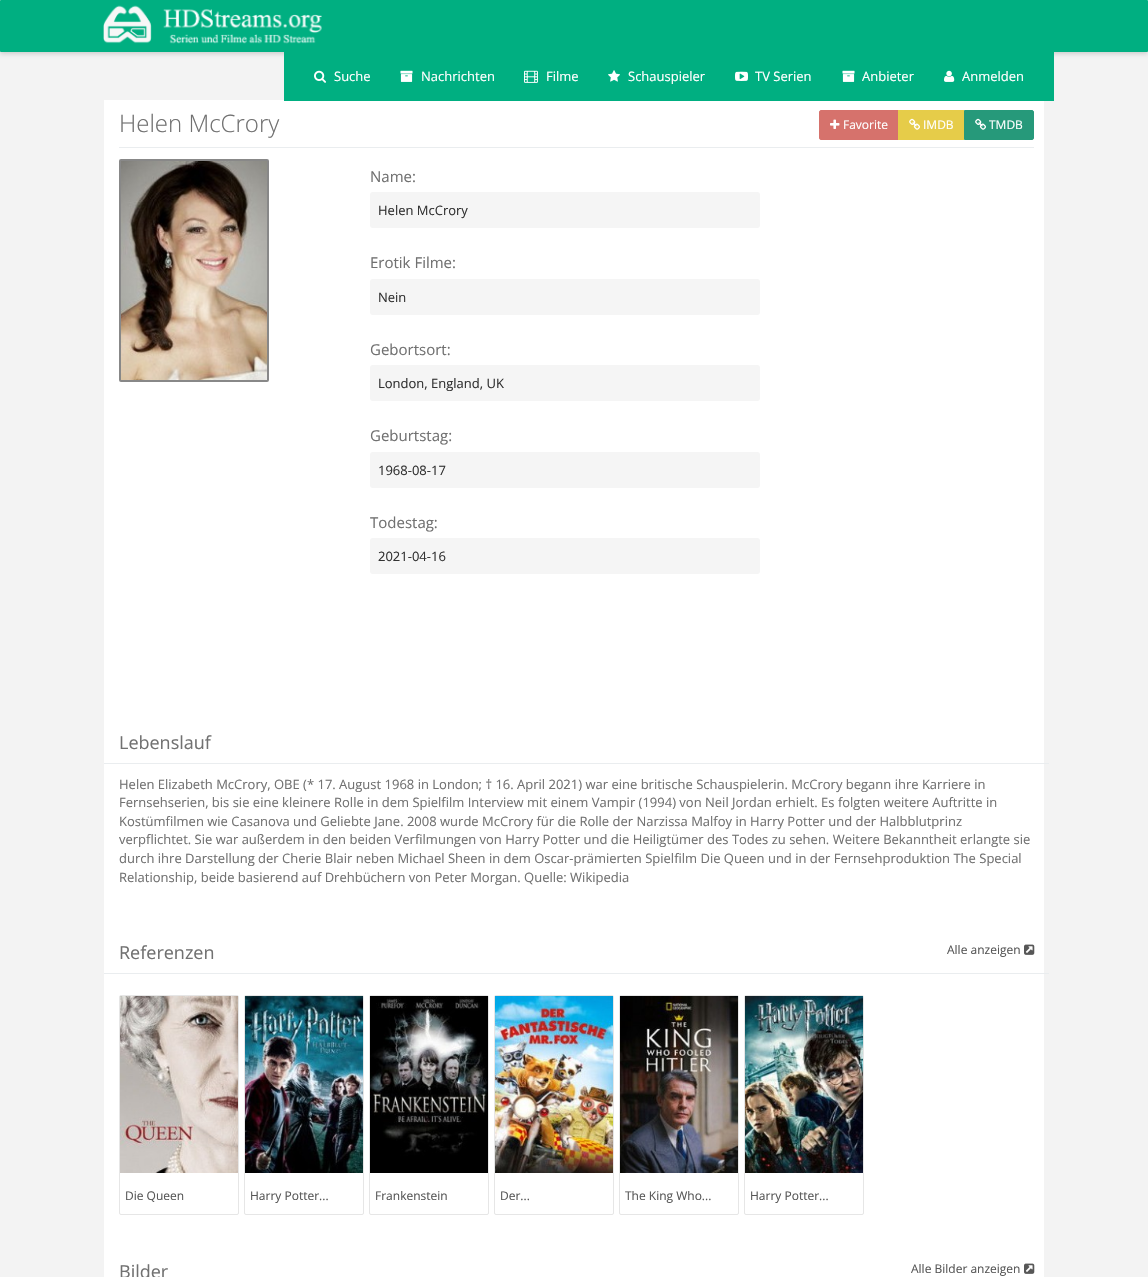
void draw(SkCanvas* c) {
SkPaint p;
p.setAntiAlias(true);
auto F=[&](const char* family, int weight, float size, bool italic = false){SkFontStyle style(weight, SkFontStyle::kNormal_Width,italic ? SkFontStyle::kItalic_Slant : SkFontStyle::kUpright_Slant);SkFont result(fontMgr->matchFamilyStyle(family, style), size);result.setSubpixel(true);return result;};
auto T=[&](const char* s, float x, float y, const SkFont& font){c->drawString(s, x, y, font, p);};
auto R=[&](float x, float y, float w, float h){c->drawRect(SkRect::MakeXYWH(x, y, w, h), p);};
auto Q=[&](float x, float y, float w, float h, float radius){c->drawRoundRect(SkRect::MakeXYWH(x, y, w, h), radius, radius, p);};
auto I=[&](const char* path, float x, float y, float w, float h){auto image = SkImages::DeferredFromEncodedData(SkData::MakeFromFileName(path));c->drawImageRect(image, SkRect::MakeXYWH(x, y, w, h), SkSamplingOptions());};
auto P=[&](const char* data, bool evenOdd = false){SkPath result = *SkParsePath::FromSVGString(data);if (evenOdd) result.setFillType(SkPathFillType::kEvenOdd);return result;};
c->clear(0xfff3f3f3);
p.setColor(0x26000000);
p.setMaskFilter(SkMaskFilter::MakeBlur(kNormal_SkBlurStyle, 2));
c->drawRoundRect(SkRect::MakeXYWH(0,2,1148,52),1,1,p);
p.setMaskFilter(nullptr);
p.setColor(0xff00af81);
Q(0,0,1148,52,1);
I("1.png",103,5,219,39);
p.setColor(0xffffffff);
R(104,100,940,1177);
p.setColor(0xff00af81);
R(284,52,770,49);
I("2.png",314,70,12,13);
auto f1 = F("Open Sans",400,13);
p.setColor(0xffffffff);
T("Suche",334,81,f1);
I("3.png",400,70,13,12);
T("Nachrichten",421,81,f1);
I("4.png",524,70,14,13);
T("Filme",546,81,f1);
I("5.png",608,70,12,12);
T("Schauspieler",628,81,f1);
I("6.png",735,71,13,10);
T("TV Serien",755,81,f1);
I("3.png",842,70,13,12);
T("Anbieter",862,81,f1);
I("7.png",944,70,11,12);
T("Anmelden",962,81,f1);
auto f2 = F("Open Sans",300,24);
p.setColor(0xff717171);
T("Helen McCrory",119,132,f2);
p.setColor(0xffd6726c);
c->drawPath(P("M821 110.5h77.5v29h-77.5c-1 0-1.5-.5-1.5-1.5v-26c0-1 .5-1.5 1.5-1.5z"),p);
p.setStroke(true);
p.setStrokeWidth(1);
c->drawPath(P("M821 110.5h77.5v29h-77.5c-1 0-1.5-.5-1.5-1.5v-26c0-1 .5-1.5 1.5-1.5z"),p);
I("8.png",830,119,10,10);
auto f3 = F("Open Sans",400,12);
p.setStroke(false);
p.setColor(0xffffffff);
T("Favorite",843,129,f3);
p.setColor(0xffe6cc49);
R(898,110,66,30);
I("9.png",909,118,11,12);
p.setColor(0xffffffff);
T("IMDB",923,129,f3);
p.setColor(0xff26997a);
c->drawPath(P("M964.5 110.5h67.5c1 0 1.5 .5 1.5 1.5v26c0 1-.5 1.5-1.5 1.5h-67.5z"),p);
p.setStroke(true);
c->drawPath(P("M964.5 110.5h67.5c1 0 1.5 .5 1.5 1.5v26c0 1-.5 1.5-1.5 1.5h-67.5z"),p);
I("10.png",975,118,11,12);
p.setStroke(false);
p.setColor(0xffffffff);
T("TMDB",989,129,f3);
p.setColor(0xffeaedef);
R(119,147,915,1);
p.setStroke(true);
p.setStrokeWidth(2);
p.setColor(0xff888888);
c->drawRoundRect(SkRect::MakeXYWH(120,160,148,221),1,1,p);
I("11.png",121,161,146,219);
auto f4 = F("Open Sans",400,15);
p.setStroke(false);
p.setColor(0xff717171);
T("Name:",370,182,f4);
p.setColor(0xfff5f5f5);
Q(370,192,390,36,3);
p.setColor(0xff333333);
T("Helen McCrory",378,215,f1);
p.setColor(0xff717171);
T("Erotik Filme:",370,268,f4);
p.setColor(0xfff5f5f5);
Q(370,279,390,36,3);
p.setColor(0xff333333);
T("Nein",378,302,f1);
p.setColor(0xff717171);
T("Gebortsort:",370,355,f4);
p.setColor(0xfff5f5f5);
Q(370,365,390,36,3);
p.setColor(0xff333333);
T("London, England, UK",378,388,f1);
p.setColor(0xff717171);
T("Geburtstag:",370,441,f4);
p.setColor(0xfff5f5f5);
Q(370,452,390,36,3);
p.setColor(0xff333333);
T("1968-08-17",378,475,f1);
p.setColor(0xff717171);
T("Todestag:",370,528,f4);
p.setColor(0xfff5f5f5);
Q(370,538,390,36,3);
p.setColor(0xff333333);
T("2021-04-16",378,561,f1);
auto f5 = F("Open Sans",400,18);
p.setColor(0xff717171);
T("Lebenslauf",119,749,f5);
p.setColor(0xffeaedef);
R(104,763,945,1);
p.setColor(0xff717171);
T("Helen Elizabeth McCrory, OBE (* 17. August 1968 in London; † 16. April 2021) war eine britische Schauspielerin. McCrory begann ihre Karriere in",119,789,f1);
T("Fernsehserien, bis sie eine kleinere Rolle in dem Spielfilm Interview mit einem Vampir (1994) von Neil Jordan erhielt. Es folgten weitere Auftritte in",119,807,f1);
T("Kostümfilmen wie Casanova und Geliebte Jane. 2008 wurde McCrory für die Rolle der Narzissa Malfoy in Harry Potter und der Halbblutprinz",119,826,f1);
T("verpflichtet. Sie war außerdem in den beiden Verfilmungen von Harry Potter und die Heiligtümer des Todes zu sehen. Weitere Bekanntheit erlangte sie",119,844,f1);
T("durch ihre Darstellung der Cherie Blair neben Michael Sheen in dem Oscar-prämierten Spielfilm Die Queen und in der Fernsehproduktion The Special",119,863,f1);
T("Relationship, beide basierend auf Drehbüchern von Peter Morgan. Quelle: Wikipedia",119,882,f1);
T("Referenzen",119,959,f5);
p.setColor(0xff575757);
T("Alle anzeigen",947,954,f3);
I("12.png",1024,944,11,11);
p.setColor(0xffeaedef);
R(104,973,945,1);
p.setStroke(true);
p.setStrokeWidth(1);
p.setColor(0xffe6e6e6);
c->drawRoundRect(SkRect::MakeXYWH(119.5,995.5,119,219),1.5,1.5,p);
I("13.png",120,996,118,177);
p.setStroke(false);
p.setColor(0xff575757);
T("Die Queen",125,1200,f3);
p.setStroke(true);
p.setColor(0xffe6e6e6);
c->drawRoundRect(SkRect::MakeXYWH(244.5,995.5,119,219),1.5,1.5,p);
I("14.png",245,996,118,177);
p.setStroke(false);
p.setColor(0xff575757);
T("Harry Potter...",250,1200,f3);
p.setStroke(true);
p.setColor(0xffe6e6e6);
c->drawRoundRect(SkRect::MakeXYWH(369.5,995.5,119,219),1.5,1.5,p);
I("15.png",370,996,118,177);
p.setStroke(false);
p.setColor(0xff575757);
T("Frankenstein",375,1200,f3);
p.setStroke(true);
p.setColor(0xffe6e6e6);
c->drawRoundRect(SkRect::MakeXYWH(494.5,995.5,119,219),1.5,1.5,p);
I("16.png",495,996,118,177);
p.setStroke(false);
p.setColor(0xff575757);
T("Der...",500,1200,f3);
p.setStroke(true);
p.setColor(0xffe6e6e6);
c->drawRoundRect(SkRect::MakeXYWH(619.5,995.5,119,219),1.5,1.5,p);
I("17.png",620,996,118,177);
p.setStroke(false);
p.setColor(0xff575757);
T("The King Who...",625,1200,f3);
p.setStroke(true);
p.setColor(0xffe6e6e6);
c->drawRoundRect(SkRect::MakeXYWH(744.5,995.5,119,219),1.5,1.5,p);
I("18.png",745,996,118,177);
p.setStroke(false);
p.setColor(0xff575757);
T("Harry Potter...",750,1200,f3);
p.setColor(0xff717171);
T("Bilder",119,1278,f5);
p.setColor(0xff575757);
T("Alle Bilder anzeigen",911,1273,f3);
I("12.png",1024,1263,11,11);
}
